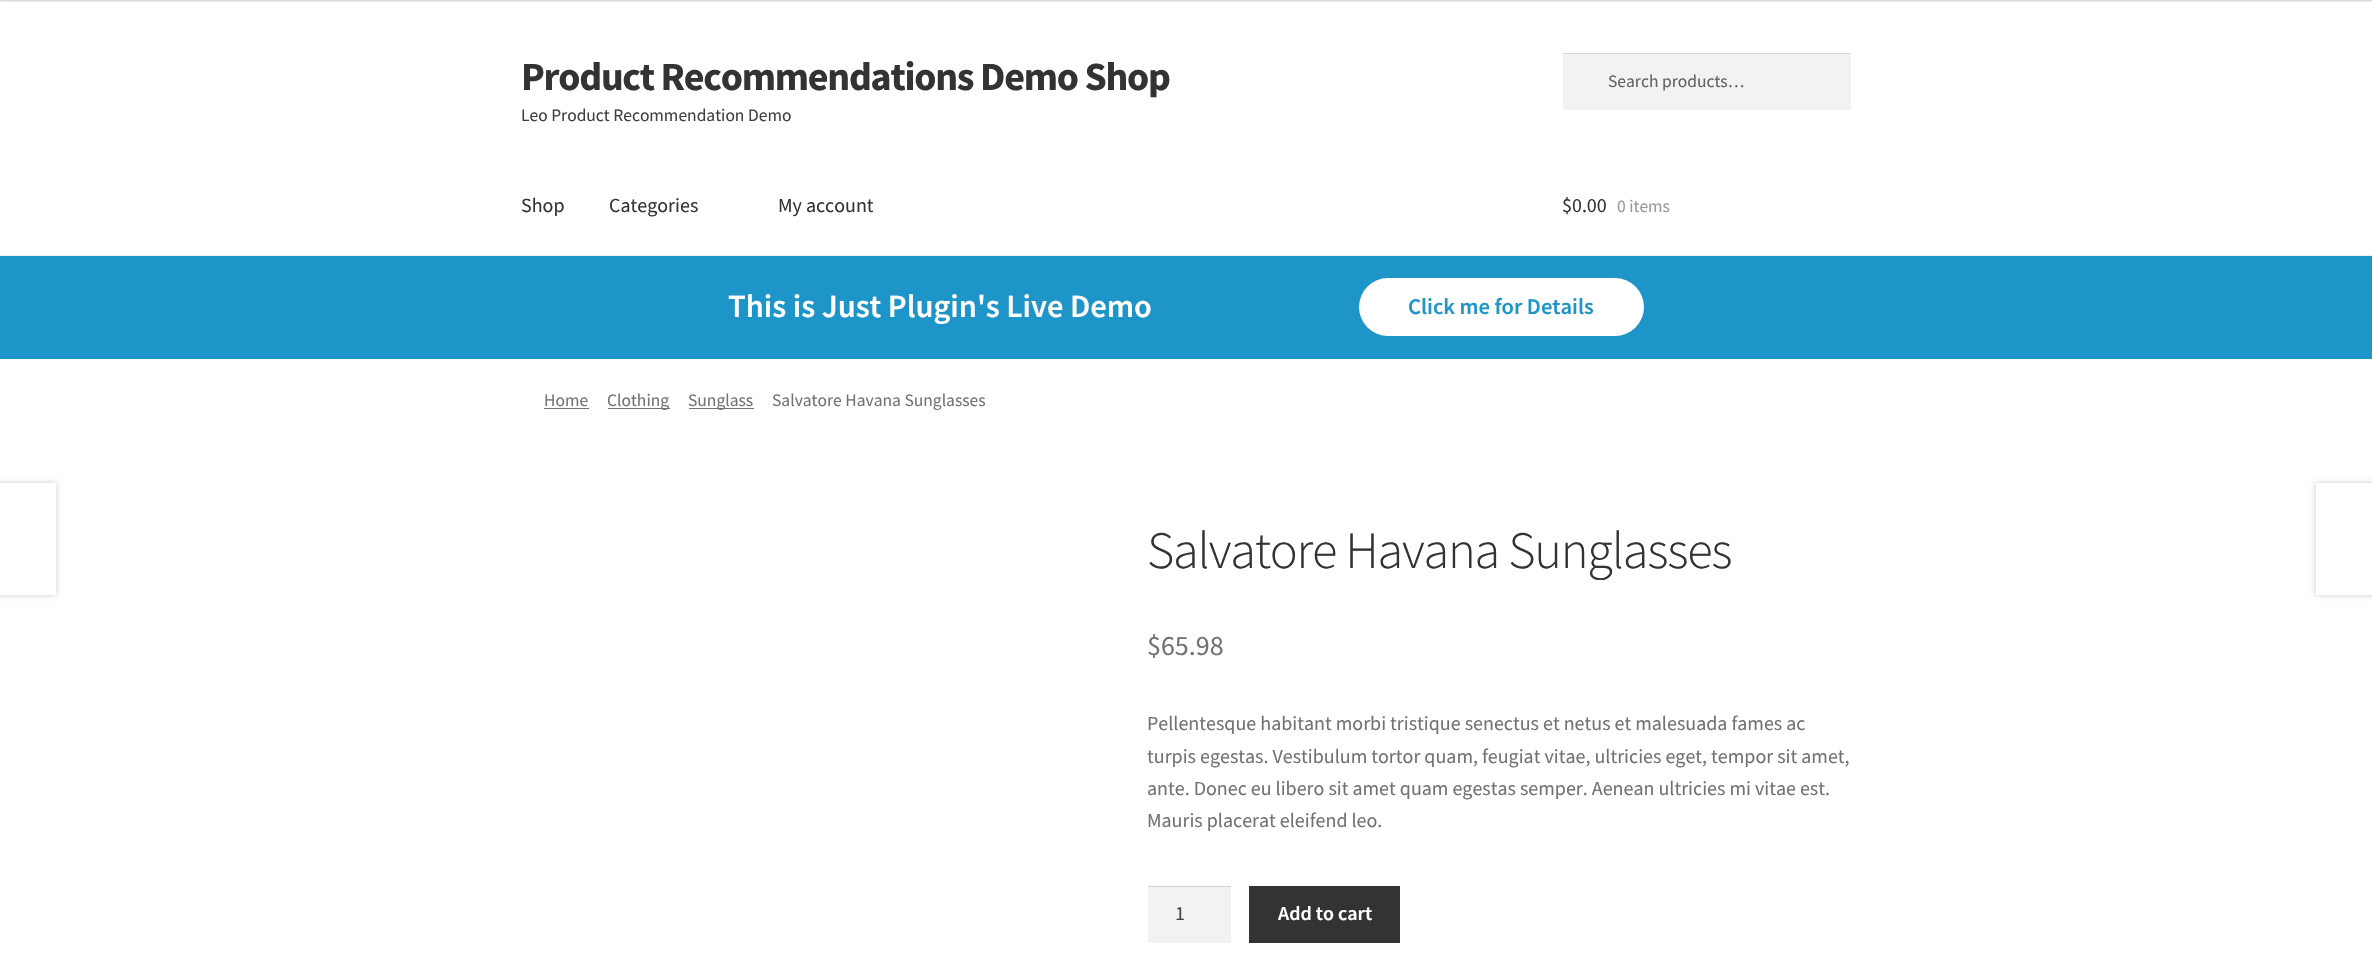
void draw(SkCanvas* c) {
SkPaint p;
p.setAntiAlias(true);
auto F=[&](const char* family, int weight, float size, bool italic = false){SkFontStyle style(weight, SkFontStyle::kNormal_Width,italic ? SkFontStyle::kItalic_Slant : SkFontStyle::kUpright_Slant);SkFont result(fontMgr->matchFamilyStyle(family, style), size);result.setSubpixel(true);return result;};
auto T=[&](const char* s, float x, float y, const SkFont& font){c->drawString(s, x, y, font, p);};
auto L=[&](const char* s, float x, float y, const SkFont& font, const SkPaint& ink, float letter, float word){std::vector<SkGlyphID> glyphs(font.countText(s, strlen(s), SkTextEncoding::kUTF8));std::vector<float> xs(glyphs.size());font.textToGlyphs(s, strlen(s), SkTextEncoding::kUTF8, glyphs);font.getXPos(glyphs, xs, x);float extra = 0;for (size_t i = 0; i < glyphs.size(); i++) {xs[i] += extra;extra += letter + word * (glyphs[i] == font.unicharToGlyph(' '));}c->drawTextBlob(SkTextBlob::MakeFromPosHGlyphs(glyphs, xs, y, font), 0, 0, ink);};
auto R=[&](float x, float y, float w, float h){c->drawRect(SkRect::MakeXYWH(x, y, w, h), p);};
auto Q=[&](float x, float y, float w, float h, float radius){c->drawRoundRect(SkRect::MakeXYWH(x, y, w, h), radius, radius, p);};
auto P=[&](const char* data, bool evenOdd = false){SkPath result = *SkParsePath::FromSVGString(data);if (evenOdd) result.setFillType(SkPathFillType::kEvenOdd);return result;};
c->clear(0xffffffff);
p.setColor(0x33000000);
p.setMaskFilter(SkMaskFilter::MakeBlur(kNormal_SkBlurStyle, 1));
c->drawRect(SkRect::MakeXYWH(0,-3,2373,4),p);
p.setMaskFilter(nullptr);
p.setColor(0xfff0f0f0);
R(0,255,2372,1);
auto f1 = F("Source Sans Pro",700,40);
p.setColor(0xff333333);
L("Product Recommendations Demo Shop",521,90,f1,p,-1.25,0);
auto f2 = F("Source Sans Pro",400,17.5);
p.setColor(0xff404040);
T("Leo Product Recommendation Demo",521,121,f2);
p.setColor(0xfff2f2f2);
R(1563,54,288,56);
p.setColor(0xffd4d4d4);
R(1563,53,288,1);
p.setColor(0xff616161);
T("Search products…",1608,87,f2);
auto f3 = F("Source Sans Pro",400,20);
p.setColor(0xff333333);
T("Shop",521,212,f3);
T("Categories",609,212,f3);
T("My account",778,212,f3);
T("$0.00",1562,212,f3);
p.setColor(0xff999999);
T("0 items",1617,212,f2);
p.setColor(0xff1d95c8);
R(0,256,2372,103);
auto f4 = F("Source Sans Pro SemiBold",600,32.4);
p.setColor(0xffffffff);
T("This is Just Plugin's Live Demo",728,317,f4);
Q(1359,278,285,58,29);
auto f5 = F("Source Sans Pro SemiBold",600,22.5);
p.setColor(0xff1d95c8);
T("Click me for Details",1408,314,f5);
p.setColor(0xff727272);
T("Home",544,406,f2);
R(544,408,45,1);
R(608,408,62,1);
T("Clothing",607,406,f2);
R(689,408,65,1);
T("Sunglass",688,406,f2);
T("Salvatore Havana Sunglasses",772,406,f2);
c->save();
c->clipPath(P("M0 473h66v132h-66zm-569 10h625v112h-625z",true),true);
p.setColor(0x33000000);
p.setMaskFilter(SkMaskFilter::MakeBlur(kNormal_SkBlurStyle, 3));
c->drawRect(SkRect::MakeXYWH(-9,483,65,112),p);
p.setMaskFilter(nullptr);
c->restore();
p.setMaskFilter(SkMaskFilter::MakeBlur(kNormal_SkBlurStyle, 3));
c->drawRect(SkRect::MakeXYWH(2316,483,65,112),p);
p.setMaskFilter(nullptr);
p.setColor(0xffffffff);
R(2316,483,56,112);
auto f6 = F("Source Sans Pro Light",300,52.4);
p.setColor(0xff333333);
L("Salvatore Havana Sunglasses",1147,568,f6,p,-1.25,0);
auto f7 = F("Source Sans Pro",400,28);
p.setColor(0xff727272);
T("$65.98",1147,655,f7);
T("Pellentesque habitant morbi tristique senectus et netus et malesuada fames ac",1147,730,f3);
T("turpis egestas. Vestibulum tortor quam, feugiat vitae, ultricies eget, tempor sit amet,",1147,763,f3);
T("ante. Donec eu libero sit amet quam egestas semper. Aenean ultricies mi vitae est.",1147,795,f3);
T("Mauris placerat eleifend leo.",1147,827,f3);
p.setColor(0xfff2f2f2);
R(1148,887,83,56);
p.setColor(0xffd4d4d4);
R(1148,886,83,1);
p.setColor(0xff43454b);
T("1",1175,920,f3);
p.setColor(0xff333333);
R(1249,886,151,57);
auto f8 = F("Source Sans Pro SemiBold",600,20);
p.setColor(0xffffffff);
T("Add to cart",1278,920,f8);
}
